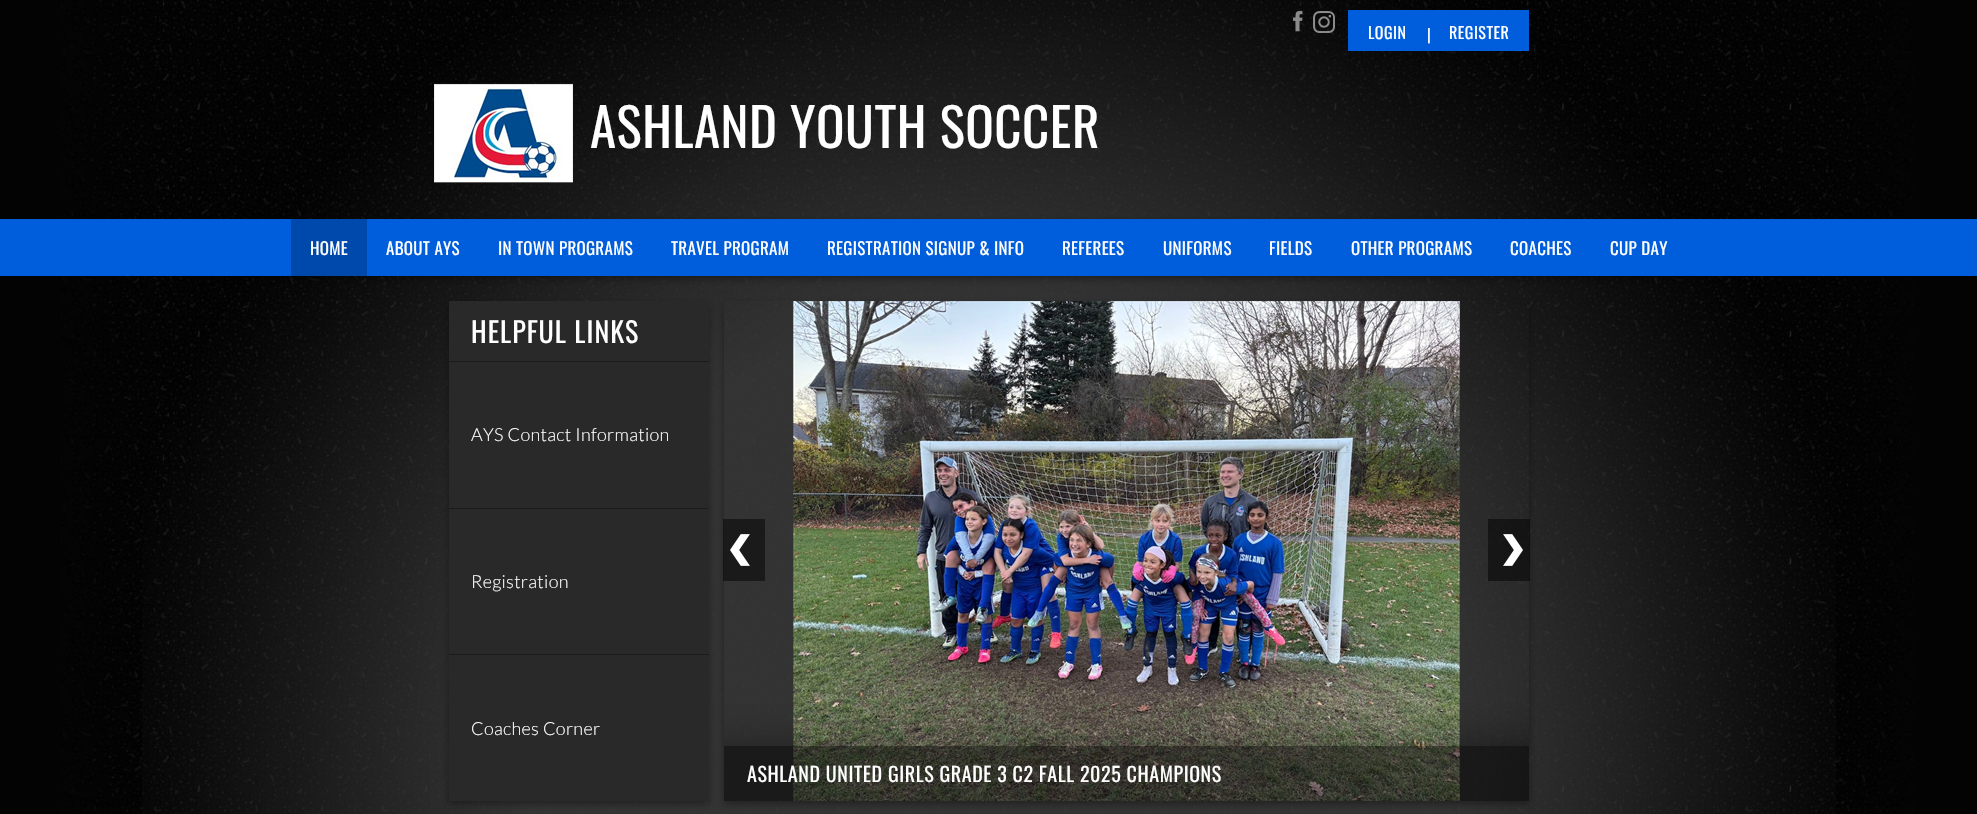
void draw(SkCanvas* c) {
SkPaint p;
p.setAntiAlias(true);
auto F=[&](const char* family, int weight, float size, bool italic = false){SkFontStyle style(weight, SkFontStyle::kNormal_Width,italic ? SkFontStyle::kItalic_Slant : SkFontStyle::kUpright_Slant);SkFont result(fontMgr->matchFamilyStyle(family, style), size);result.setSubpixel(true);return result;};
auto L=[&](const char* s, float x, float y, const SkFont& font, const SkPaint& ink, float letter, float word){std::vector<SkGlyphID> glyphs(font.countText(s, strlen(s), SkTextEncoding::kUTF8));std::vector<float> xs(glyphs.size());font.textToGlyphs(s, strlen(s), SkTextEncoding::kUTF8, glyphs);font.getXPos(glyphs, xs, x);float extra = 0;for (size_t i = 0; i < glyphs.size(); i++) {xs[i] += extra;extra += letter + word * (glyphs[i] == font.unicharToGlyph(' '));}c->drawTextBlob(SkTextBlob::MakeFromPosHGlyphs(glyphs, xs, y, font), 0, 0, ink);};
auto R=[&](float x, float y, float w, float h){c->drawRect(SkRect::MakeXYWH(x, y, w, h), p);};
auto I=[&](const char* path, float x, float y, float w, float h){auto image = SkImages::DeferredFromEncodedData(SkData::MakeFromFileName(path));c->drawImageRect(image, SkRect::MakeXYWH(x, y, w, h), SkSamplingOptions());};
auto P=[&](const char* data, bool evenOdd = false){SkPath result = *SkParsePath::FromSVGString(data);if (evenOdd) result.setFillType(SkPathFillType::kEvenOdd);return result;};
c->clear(0xff030303);
I("1.png",61,0,1853,814);
I("2.png",142,0,1694,814);
I("3.png",1293,10,10,22);
I("4.png",1313,11,22,22);
p.setColor(0xff005ddb);
R(1348,10,181,41);
auto f1 = F("Oswald",400,16);
p.setColor(0xffffffff);
L("LOGIN",1368,39,f1,p,.5,0);
L("|",1427,41,f1,p,.5,0);
L("REGISTER",1449,39,f1,p,.5,0);
I("5.png",434,83,139,100);
auto f2 = F("Oswald",400,53);
L("ASHLAND YOUTH SOCCER",590,148,f2,p,.5,0);
p.setColor(0x59000000);
p.setMaskFilter(SkMaskFilter::MakeBlur(kNormal_SkBlurStyle, 3.5));
c->drawRect(SkRect::MakeXYWH(0,222,1977,57),p);
p.setMaskFilter(nullptr);
p.setColor(0xff005ddb);
R(0,219,1977,57);
p.setColor(0xff0049ac);
R(291,219,76,57);
auto f3 = F("Oswald",400,17);
p.setColor(0xffffffff);
L("HOME",310,255,f3,p,.3,0);
L("ABOUT AYS",386,255,f3,p,.3,0);
L("IN TOWN PROGRAMS",498,255,f3,p,.3,0);
L("TRAVEL PROGRAM",671,255,f3,p,.3,0);
L("REGISTRATION SIGNUP & INFO",827,255,f3,p,.3,0);
L("REFEREES",1062,255,f3,p,.3,0);
L("UNIFORMS",1163,255,f3,p,.3,0);
L("FIELDS",1269,255,f3,p,.3,0);
L("OTHER PROGRAMS",1351,255,f3,p,.3,0);
L("COACHES",1510,255,f3,p,.3,0);
L("CUP DAY",1610,255,f3,p,.3,0);
p.setColor(0x59000000);
p.setMaskFilter(SkMaskFilter::MakeBlur(kNormal_SkBlurStyle, 3.5));
c->drawRect(SkRect::MakeXYWH(449,304,260,500),p);
p.setMaskFilter(nullptr);
p.setColor(0xff292929);
R(449,301,260,500);
auto f4 = F("Oswald",400,28);
p.setColor(0xffffffff);
L("HELPFUL LINKS",471,343,f4,p,1,0);
p.setColor(0xff1b1b1b);
R(449,361,260,1);
auto f5 = F("Lato",300,18);
p.setColor(0xffffffff);
L("AYS Contact Information",471,441,f5,p,.3,0);
p.setColor(0xff1b1b1b);
R(449,508,260,1);
p.setColor(0xffffffff);
L("Registration",471,588,f5,p,.3,0);
p.setColor(0xff1b1b1b);
R(449,654,260,1);
p.setColor(0xffffffff);
L("Coaches Corner",471,735,f5,p,.3,0);
c->save();
c->clipPath(P("M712 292h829v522h-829zm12 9h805v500h-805z",true),true);
p.setColor(0x59000000);
p.setMaskFilter(SkMaskFilter::MakeBlur(kNormal_SkBlurStyle, 3.5));
c->drawRect(SkRect::MakeXYWH(724,304,805,500),p);
p.setMaskFilter(nullptr);
c->restore();
I("9.png",793,301,667,500);
I("6.png",724,702,805,44);
p.setColor(0x80000000);
R(723,519,42,62);
I("7.png",730,534,20,32);
R(1488,519,42,62);
I("8.png",1503,534,20,32);
R(724,746,805,55);
auto f6 = F("Oswald",400,20);
p.setColor(0xffffffff);
L("ASHLAND UNITED GIRLS GRADE 3 C2 FALL 2025 CHAMPIONS",747,782,f6,p,.6,0);
}
